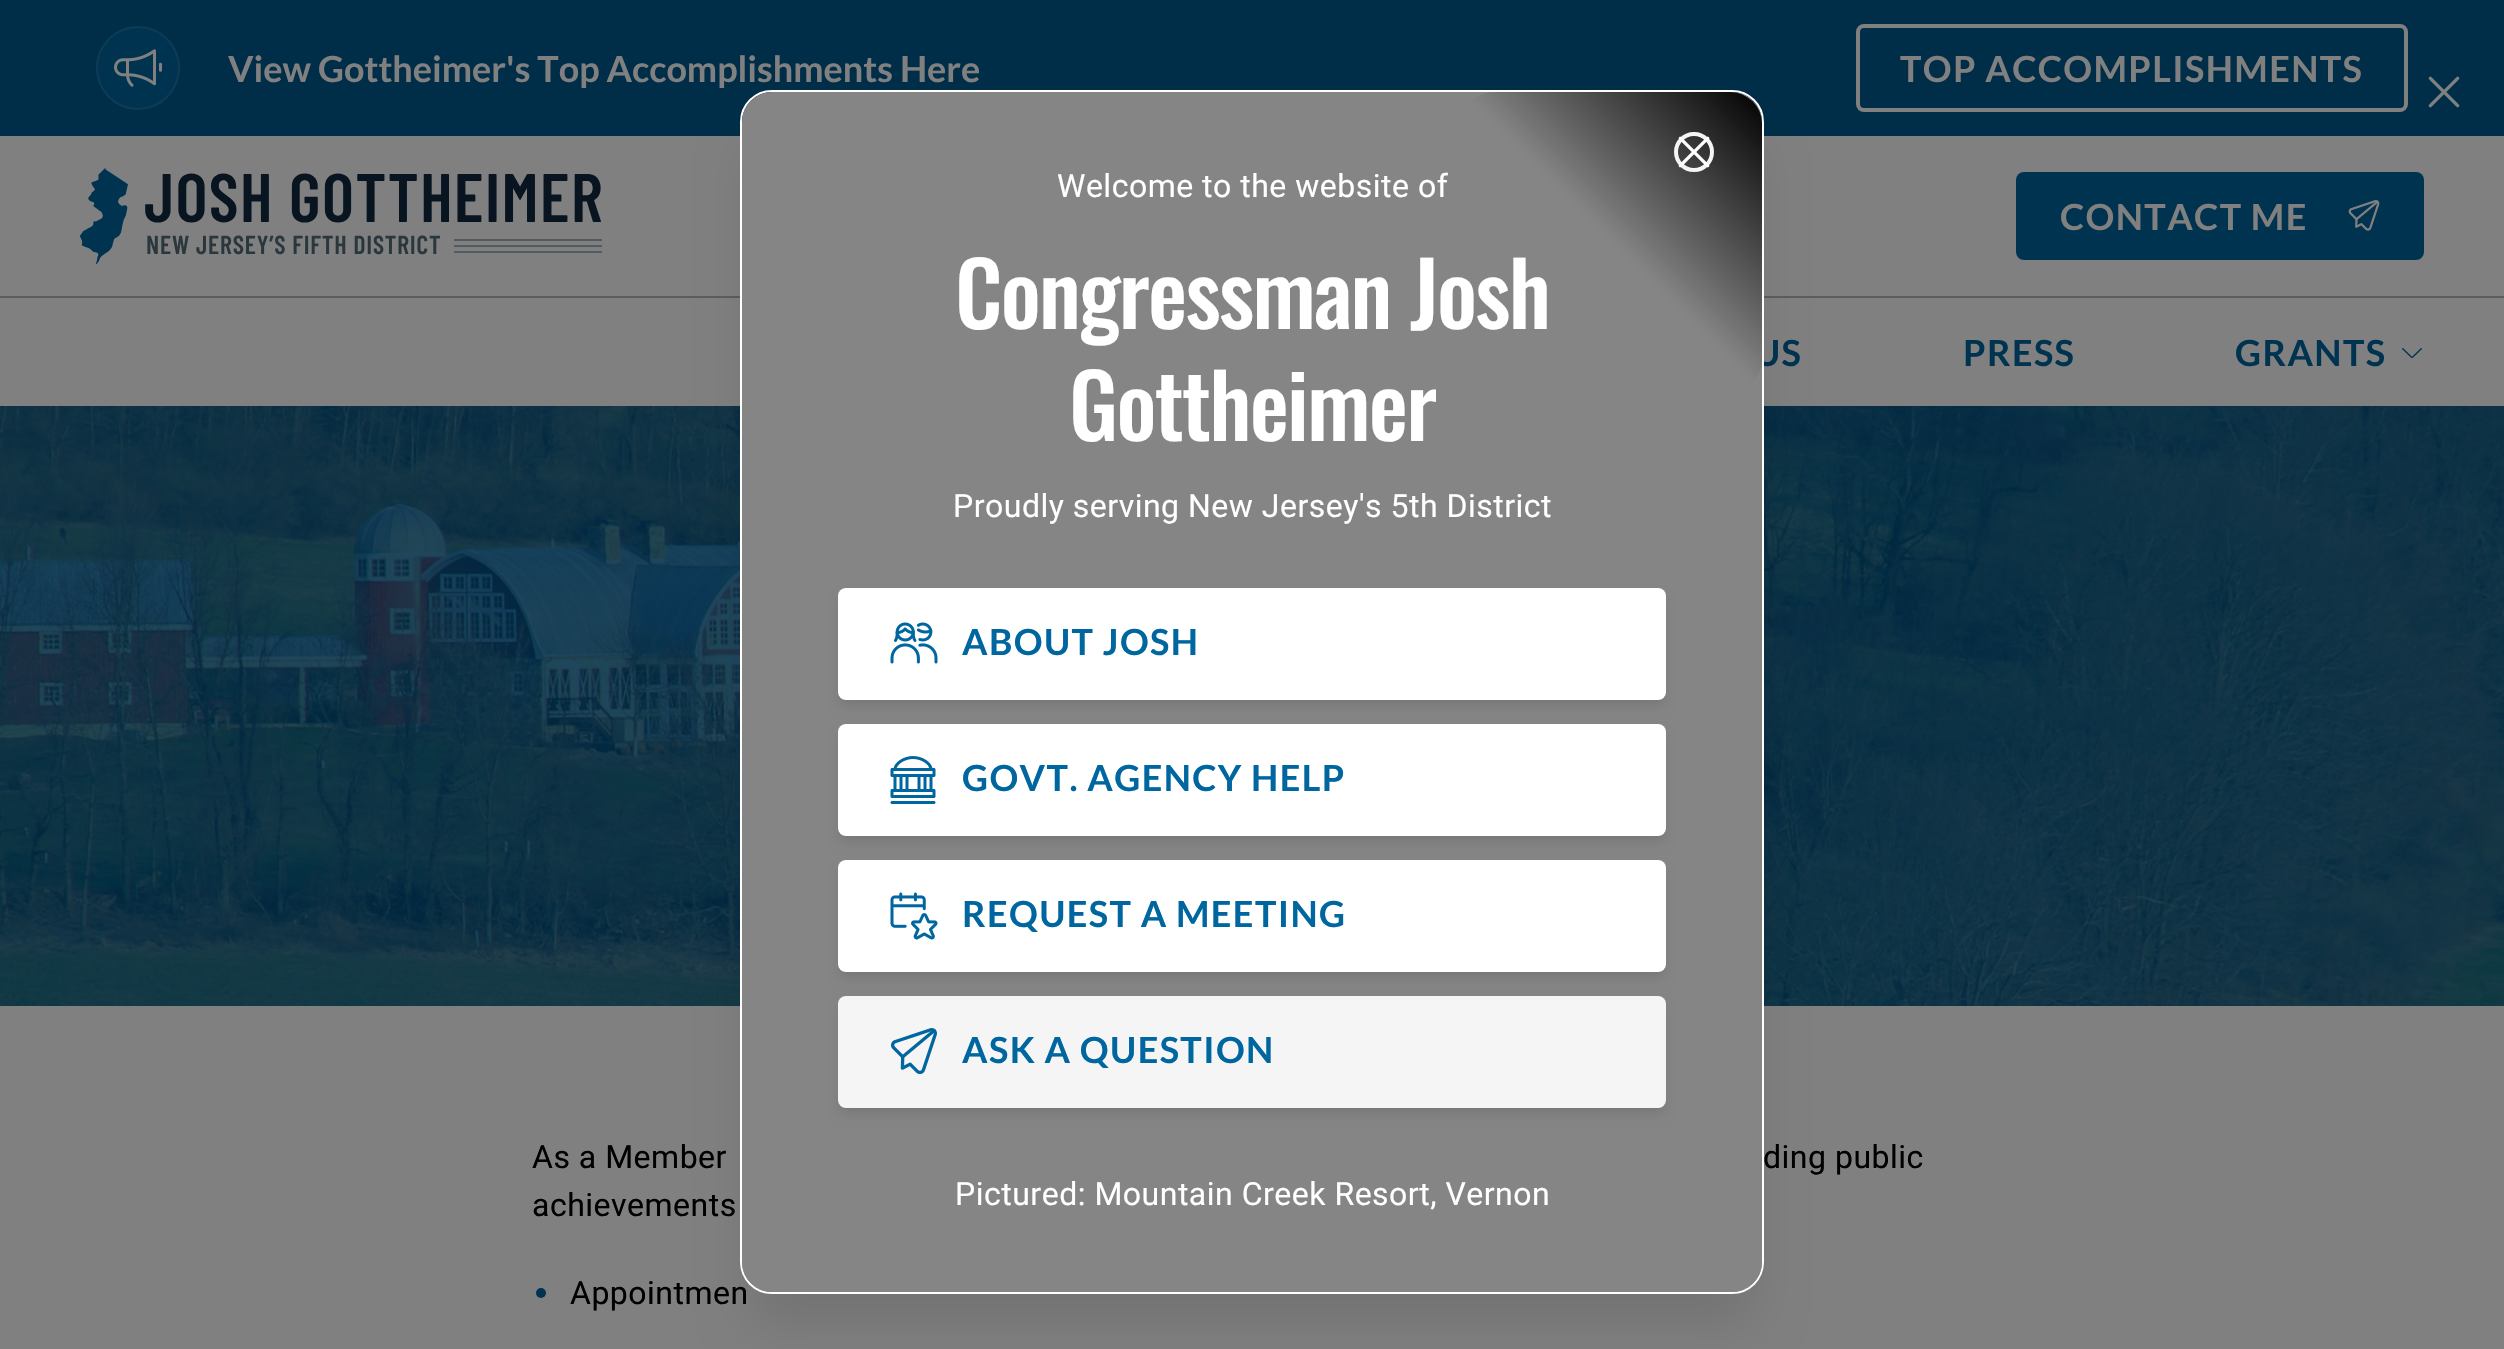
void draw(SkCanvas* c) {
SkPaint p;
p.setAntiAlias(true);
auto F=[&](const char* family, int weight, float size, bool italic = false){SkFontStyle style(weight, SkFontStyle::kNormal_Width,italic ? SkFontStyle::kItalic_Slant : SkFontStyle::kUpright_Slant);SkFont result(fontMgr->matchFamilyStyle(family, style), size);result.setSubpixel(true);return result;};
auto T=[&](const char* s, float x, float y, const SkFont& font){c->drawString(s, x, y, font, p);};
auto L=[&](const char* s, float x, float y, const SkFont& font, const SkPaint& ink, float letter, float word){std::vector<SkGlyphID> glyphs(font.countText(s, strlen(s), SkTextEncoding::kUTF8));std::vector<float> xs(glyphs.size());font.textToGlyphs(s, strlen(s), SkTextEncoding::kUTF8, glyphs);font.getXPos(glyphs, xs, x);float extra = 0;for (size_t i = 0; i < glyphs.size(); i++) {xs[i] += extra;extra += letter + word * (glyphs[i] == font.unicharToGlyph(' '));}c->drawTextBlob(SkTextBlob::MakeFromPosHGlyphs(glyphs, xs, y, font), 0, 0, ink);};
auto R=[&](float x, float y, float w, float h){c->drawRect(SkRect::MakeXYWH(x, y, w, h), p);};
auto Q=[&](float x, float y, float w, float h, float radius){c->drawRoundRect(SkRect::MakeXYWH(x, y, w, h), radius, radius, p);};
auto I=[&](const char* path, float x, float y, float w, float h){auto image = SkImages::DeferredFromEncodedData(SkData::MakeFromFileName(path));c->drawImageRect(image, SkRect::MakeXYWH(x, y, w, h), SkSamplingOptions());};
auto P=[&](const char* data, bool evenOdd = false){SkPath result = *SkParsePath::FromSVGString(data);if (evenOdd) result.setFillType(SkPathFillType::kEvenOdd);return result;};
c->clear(0xff808080);
p.setColor(0xff002e48);
R(0,0,2504,136);
p.setColor(0xff003350);
c->drawCircle(138,68,41,p);
p.setStroke(true);
p.setStrokeWidth(2);
p.setColor(0xff0d3b55);
c->drawCircle(138,68,41,p);
I("1.png",114,49,48,38);
auto f1 = F("Lato",700,36);
p.setStroke(false);
p.setColor(0xff808080);
T("View Gottheimer's Top Accomplishments Here",228,82,f1);
p.setStroke(true);
p.setStrokeWidth(4);
c->drawRoundRect(SkRect::MakeXYWH(1858,26,548,84),6,6,p);
p.setStroke(false);
L("TOP ACCOMPLISHMENTS",1900,82,f1,p,1.4,0);
I("2.png",2428,76,32,32);
I("3.png",80,168,522,96);
p.setColor(0xff003350);
Q(2016,172,408,88,8);
p.setColor(0xff808080);
L("CONTACT ME",2060,230,f1,p,1.4,0);
I("4.png",2348,200,32,31);
p.setColor(0xff5d5d5d);
R(0,296,2504,2);
p.setColor(0xff003350);
L("US",1754,366,f1,p,1.4,0);
L("PRESS",1963,366,f1,p,1.4,0);
L("GRANTS",2235,366,f1,p,1.4,0);
I("5.png",2402,348,20,10);
I("6.png",0,406,2504,600);
auto f2 = F("Roboto",400,32);
p.setColor(0xff000000);
L("As a Member",532,1168,f2,p,.5,0);
L("ding public",1763,1168,f2,p,.5,0);
L("achievements",532,1216,f2,p,.5,0);
p.setColor(0xff003350);
c->drawCircle(541,1293,5,p);
p.setColor(0xff000000);
L("Appointmen",570,1304,f2,p,.5,0);
p.setColor(0x1a000000);
p.setMaskFilter(SkMaskFilter::MakeBlur(kNormal_SkBlurStyle, 25));
c->drawRoundRect(SkRect::MakeXYWH(750,140,1004,1184),22,22,p);
p.setMaskFilter(nullptr);
p.setStroke(true);
p.setStrokeWidth(2);
p.setColor(0xffffffff);
c->drawRoundRect(SkRect::MakeXYWH(741,91,1022,1202),31,31,p);
p.setStroke(false);
p.setColor(0xff858585);
Q(742,92,1020,1200,30);
p.setColor(0xffffffff);
L("Welcome to the website of",1057,197,f2,p,.5,0);
auto f3 = F("Oswald",500,88);
L("Congressman Josh",955,329,f3,p,-1.75,0);
L("Gottheimer",1069,441,f3,p,-1.75,0);
L("Proudly serving New Jersey's 5th District",953,517,f2,p,.5,0);
p.setColor(0x1a000000);
p.setMaskFilter(SkMaskFilter::MakeBlur(kNormal_SkBlurStyle, 6));
c->drawRoundRect(SkRect::MakeXYWH(840,598,824,108),6,6,p);
p.setMaskFilter(nullptr);
p.setColor(0xffffffff);
Q(838,588,828,112,8);
I("7.png",890,622,48,42);
p.setColor(0xff0066a0);
L("ABOUT JOSH",962,655,f1,p,1.4,0);
p.setColor(0x1a000000);
p.setMaskFilter(SkMaskFilter::MakeBlur(kNormal_SkBlurStyle, 6));
c->drawRoundRect(SkRect::MakeXYWH(840,734,824,108),6,6,p);
p.setMaskFilter(nullptr);
p.setColor(0xffffffff);
Q(838,724,828,112,8);
I("8.png",890,756,46,48);
p.setColor(0xff0066a0);
L("GOVT. AGENCY HELP",962,791,f1,p,1.4,0);
p.setColor(0x1a000000);
p.setMaskFilter(SkMaskFilter::MakeBlur(kNormal_SkBlurStyle, 6));
c->drawRoundRect(SkRect::MakeXYWH(840,870,824,108),6,6,p);
p.setMaskFilter(nullptr);
p.setColor(0xffffffff);
Q(838,860,828,112,8);
I("9.png",890,892,48,48);
p.setColor(0xff0066a0);
L("REQUEST A MEETING",962,927,f1,p,1.4,0);
p.setColor(0x1a000000);
p.setMaskFilter(SkMaskFilter::MakeBlur(kNormal_SkBlurStyle, 6));
c->drawRoundRect(SkRect::MakeXYWH(840,1006,824,108),6,6,p);
p.setMaskFilter(nullptr);
p.setColor(0xfff5f5f5);
Q(838,996,828,112,8);
I("10.png",891,1028,46,47);
p.setColor(0xff0066a0);
L("ASK A QUESTION",962,1063,f1,p,1.4,0);
p.setColor(0xffffffff);
L("Pictured: Mountain Creek Resort, Vernon",955,1205,f2,p,.5,0);
c->save();
c->clipPath(P("M772 92h960c16.5 0 30 13.5 30 30v1140c0 16.5-13.5 30-30 30h-960c-16.5 0-30-13.5-30-30v-1140c0-16.5 13.5-30 30-30z"),true);
{
const SkColor colors[] = {0xff000000,0x00000000};
const float stops[] = {0,.5};
const SkPoint ends[] = {{1762,92}, {1462,392}};
p.setShader(SkGradientShader::MakeLinear(ends, colors, stops, 2, SkTileMode::kClamp));
p.setAlpha(255);
}
Q(1462,92,300,300,32);
c->restore();
p.setStroke(true);
p.setStrokeWidth(4);
p.setShader(nullptr);
p.setColor(0xfff5f5f5);
c->drawCircle(1694,152,18,p);
I("11.png",1678,136,32,32);
}
